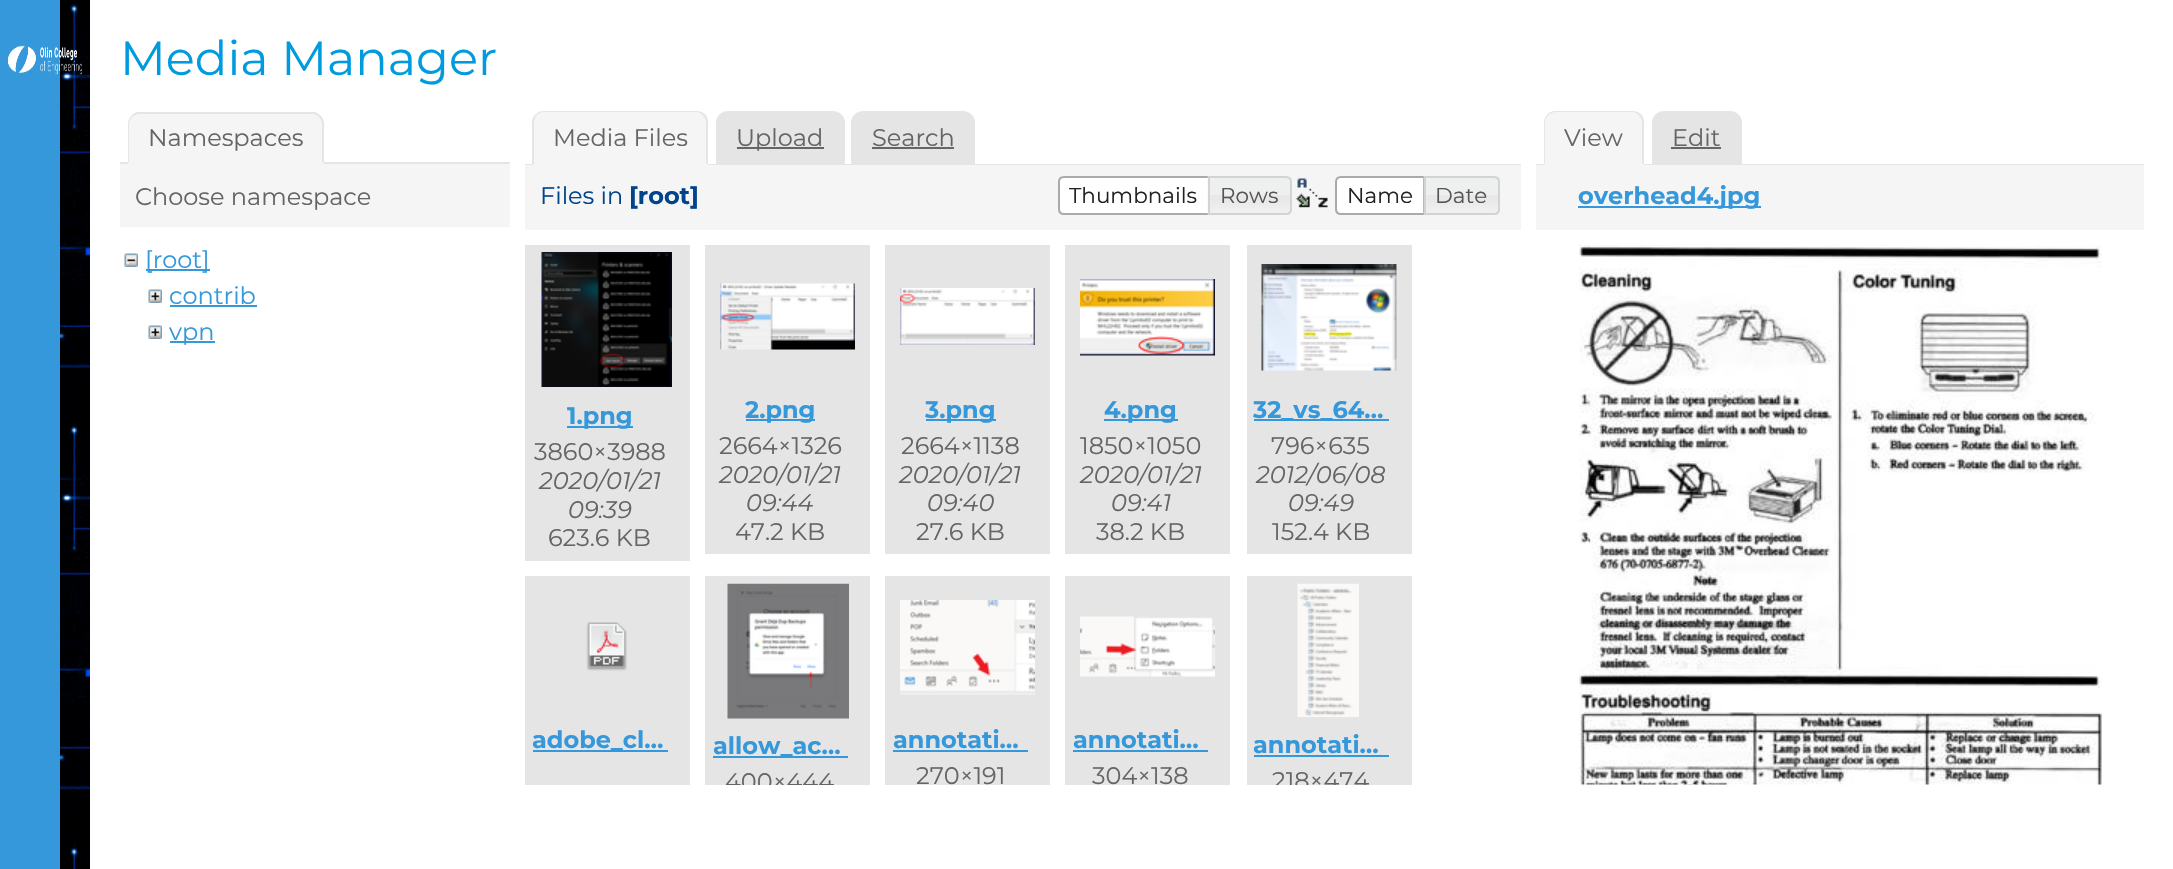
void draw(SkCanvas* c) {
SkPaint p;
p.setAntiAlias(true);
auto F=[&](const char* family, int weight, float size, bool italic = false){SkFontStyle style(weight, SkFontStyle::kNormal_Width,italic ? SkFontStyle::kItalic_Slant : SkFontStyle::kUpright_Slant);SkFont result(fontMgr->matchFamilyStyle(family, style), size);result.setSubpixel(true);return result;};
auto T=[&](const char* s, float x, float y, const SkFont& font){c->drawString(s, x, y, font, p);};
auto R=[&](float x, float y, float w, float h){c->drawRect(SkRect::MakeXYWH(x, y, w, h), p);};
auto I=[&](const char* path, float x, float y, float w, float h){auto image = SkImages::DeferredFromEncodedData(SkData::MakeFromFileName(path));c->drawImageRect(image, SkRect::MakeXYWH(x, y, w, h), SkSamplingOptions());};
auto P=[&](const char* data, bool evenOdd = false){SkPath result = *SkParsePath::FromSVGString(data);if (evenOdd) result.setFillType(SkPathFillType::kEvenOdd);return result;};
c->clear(0xffffffff);
p.setColor(0xff3498db);
R(0,0,60,869);
I("1.png",60,0,30,869);
I("2.png",8,45,74,30);
auto f1 = F("Montserrat",400,48);
p.setColor(0xff009bdf);
T("Media Manager",120,75,f1);
p.setColor(0xffe5e5e5);
R(120,162,390,2);
p.setColor(0xfff5f5f5);
c->drawPath(P("M140 113h172c6.5 0 12 5.5 12 12v39h-196v-39c0-6.5 5.5-12 12-12z"),p);
p.setColor(0xffe5e5e5);
c->drawPath(P("M140 114c-3 0-6 1-8 3l-1-1c2-2 3-3 6-4h178c2 1 4 2 6 4l-2 1c-1-2-4-3-7-3z"),p);
c->drawPath(P("M324 164v-40c0-3-1-6-3-8l-2 1c2 2 3 5 3 7v38z"),p);
p.setColor(0xfff5f5f5);
c->drawPath(P("M324 164h-196l1-2h193z"),p);
p.setColor(0xffe5e5e5);
c->drawPath(P("M128 163v-39c0-3 1-6 3-8l1 1c-2 2-3 5-3 7v38z"),p);
auto f2 = F("Montserrat",400,24);
p.setColor(0xff656565);
T("Namespaces",148,146,f2);
p.setColor(0xfff5f5f5);
R(120,164,390,63);
p.setColor(0xff656565);
T("Choose namespace",135,205,f2);
I("3.png",124,253,14,14);
p.setColor(0xff3498db);
R(146,269,64,2);
T("[root]",145,268,f2);
I("4.png",148,289,14,14);
T("contrib",169,304,f2);
R(170,305,87,2);
I("4.png",148,325,14,14);
R(170,341,45,2);
T("vpn",169,340,f2);
p.setColor(0xffe5e5e5);
c->drawPath(P("M728 112h105c6 0 11 5 11 11v41h-127v-41c0-6 5-11 11-11z"),p);
p.setStroke(true);
p.setStrokeWidth(2);
c->drawPath(P("M728 112h105c6 0 11 5 11 11v41h-127v-41c0-6 5-11 11-11z"),p);
p.setStroke(false);
c->drawPath(P("M863 112h100c6 0 11 5 11 11v41h-122v-41c0-6 5-11 11-11z"),p);
p.setStroke(true);
c->drawPath(P("M863 112h100c6 0 11 5 11 11v41h-122v-41c0-6 5-11 11-11z"),p);
p.setStroke(false);
R(525,164,996,1);
p.setColor(0xfff5f5f5);
c->drawPath(P("M545 111h151c6.5 0 12 5.5 12 12v42h-175v-42c0-6.5 5.5-12 12-12z"),p);
p.setColor(0xffe5e5e5);
c->drawPath(P("M544 111c-3 0-6 1-8 3l1 1c2-2 4-3 7-3h152c3 0 6 1 7 4l2-2c-3-2-5-3-9-3z"),p);
c->drawPath(P("M708 165v-42c0-3-1-7-3-9l-2 2c2 1 3 4 3 7v40z"),p);
p.setColor(0xfff5f5f5);
c->drawPath(P("M708 165l-2-2v1h-172l-2 1z"),p);
p.setColor(0xffe5e5e5);
c->drawPath(P("M532 165v-45c1-2 2-4 4-6l1 1c-2 2-3 5-3 8v41z"),p);
p.setColor(0xff656565);
T("Media Files",553,146,f2);
R(737,147,87,2);
T("Upload",736,146,f2);
T("Search",872,146,f2);
R(872,147,82,2);
p.setColor(0xfff5f5f5);
R(525,165,996,65);
p.setColor(0xff00458c);
T("Files in",540,204,f2);
auto f3 = F("Montserrat",700,24);
T("[root]",629,204,f3);
p.setColor(0xffffffff);
c->drawPath(P("M1064 177h146v37h-146c-3 0-5-2-5-5v-27c0-3 2-5 5-5z"),p);
p.setStroke(true);
p.setColor(0xffaaaaaa);
c->drawPath(P("M1064 177h146v37h-146c-3 0-5-2-5-5v-27c0-3 2-5 5-5z"),p);
auto f4 = F("Montserrat",400,21.5);
p.setStroke(false);
p.setColor(0xff212121);
T("Thumbnails",1069,203,f4);
I("5.png",1207,176,84,39);
p.setStroke(true);
p.setColor(0xffd3d3d3);
c->drawPath(P("M1209 177h77c3 0 5 2 5 5v27c0 3-2 5-5 5h-77z"),p);
p.setStroke(false);
p.setColor(0xff555555);
T("Rows",1220,203,f4);
I("6.png",1295,178,33,30);
p.setColor(0xffffffff);
c->drawPath(P("M1341 177h83v37h-83c-3 0-5-2-5-5v-27c0-3 2-5 5-5z"),p);
p.setStroke(true);
p.setColor(0xffaaaaaa);
c->drawPath(P("M1341 177h83v37h-83c-3 0-5-2-5-5v-27c0-3 2-5 5-5z"),p);
p.setStroke(false);
p.setColor(0xff212121);
T("Name",1347,203,f4);
I("7.png",1423,176,77,39);
p.setStroke(true);
p.setColor(0xffd3d3d3);
c->drawPath(P("M1425 177h69c3 0 5 2 5 5v27c0 3-2 5-5 5h-69z"),p);
p.setStroke(false);
p.setColor(0xff555555);
T("Date",1435,203,f4);
p.setColor(0xffe5e5e5);
R(525,245,165,316);
I("8.png",541,252,131,135);
p.setColor(0xff3498db);
R(567,426,66,2);
T("1.png",567,424,f3);
p.setColor(0xff656565);
T("3860×3988",534,460,f2);
auto f5 = F("Montserrat",400,24,true);
T("2020/01/21",539,489,f5);
T("09:39",568,518,f5);
T("623.6 KB",548,546,f2);
p.setColor(0xffe5e5e5);
R(705,245,165,309);
I("9.png",720,283,135,67);
p.setColor(0xff3498db);
R(746,419,69,2);
T("2.png",745,418,f3);
p.setColor(0xff656565);
T("2664×1326",719,454,f2);
T("2020/01/21",719,483,f5);
T("09:44",746,511,f5);
T("47.2 KB",735,540,f2);
p.setColor(0xffe5e5e5);
R(885,245,165,309);
I("10.png",900,288,135,57);
p.setColor(0xff3498db);
R(926,419,70,2);
T("3.png",925,418,f3);
p.setColor(0xff656565);
T("2664×1138",901,454,f2);
T("2020/01/21",899,483,f5);
T("09:40",927,511,f5);
T("27.6 KB",916,540,f2);
p.setColor(0xffe5e5e5);
R(1065,245,165,309);
I("11.png",1080,279,135,77);
p.setColor(0xff3498db);
R(1104,419,74,2);
T("4.png",1104,418,f3);
p.setColor(0xff656565);
T("1850×1050",1080,454,f2);
T("2020/01/21",1080,483,f5);
T("09:41",1111,511,f5);
T("38.2 KB",1096,540,f2);
p.setColor(0xffe5e5e5);
R(1247,245,165,309);
I("12.png",1261,264,136,107);
p.setColor(0xff3498db);
R(1254,419,135,2);
T("32_vs_64…",1253,418,f3);
p.setColor(0xff656565);
T("796×635",1271,454,f2);
T("2012/06/08",1256,483,f5);
T("09:49",1288,511,f5);
T("152.4 KB",1272,540,f2);
p.setColor(0xffe5e5e5);
R(525,576,165,209);
I("13.png",586,622,41,49);
p.setColor(0xff3498db);
R(533,750,135,2);
T("adobe_cl…",532,748,f3);
p.setColor(0xffe5e5e5);
R(705,576,165,209);
I("14.png",727,583,122,136);
p.setColor(0xff3498db);
R(713,756,135,2);
T("allow_ac…",713,754,f3);
c->save();
c->clipRect(SkRect::MakeXYWH(713,768,135,17));
p.setColor(0xff656565);
T("400×444",725,790,f2);
c->restore();
p.setColor(0xffe5e5e5);
R(885,576,165,209);
I("15.png",900,600,135,95);
p.setColor(0xff3498db);
T("annotati…",893,748,f3);
R(893,750,135,2);
p.setColor(0xff656565);
T("270×191",916,784,f2);
p.setColor(0xffe5e5e5);
R(1065,576,165,209);
I("16.png",1080,616,135,61);
p.setColor(0xff3498db);
T("annotati…",1073,748,f3);
R(1073,750,135,2);
p.setColor(0xff656565);
T("304×138",1092,784,f2);
p.setColor(0xffe5e5e5);
R(1247,576,165,209);
I("17.png",1297,583,62,134);
p.setColor(0xff3498db);
T("annotati…",1253,753,f3);
R(1254,755,135,2);
c->save();
c->clipRect(SkRect::MakeXYWH(1254,767,135,18));
p.setColor(0xff656565);
T("218×474",1272,789,f2);
c->restore();
p.setColor(0xffe5e5e5);
c->drawPath(P("M1664 112h66c6 0 11 5 11 11v41h-88v-41c0-6 5-11 11-11z"),p);
p.setStroke(true);
c->drawPath(P("M1664 112h66c6 0 11 5 11 11v41h-88v-41c0-6 5-11 11-11z"),p);
p.setStroke(false);
R(1536,164,608,1);
p.setColor(0xfff5f5f5);
c->drawPath(P("M1556 111h76c6.5 0 12 5.5 12 12v42h-100v-42c0-6.5 5.5-12 12-12z"),p);
p.setColor(0xffe5e5e5);
c->drawPath(P("M1556 111c-4 0-7 1-9 4l1 1c2-3 5-4 8-4h76c3 0 6 1 7 4l2-2c-3-2-5-3-9-3z"),p);
c->drawPath(P("M1644 165v-42c0-3-1-7-3-9l-2 2c2 1 3 4 3 7v40z"),p);
p.setColor(0xfff5f5f5);
c->drawPath(P("M1644 165l-2-2v1h-97l-1 1z"),p);
p.setColor(0xffe5e5e5);
c->drawPath(P("M1547 115c-2 2-3 5-3 8v41h1v-41c0-3 1-6 3-7z"),p);
p.setColor(0xff656565);
T("View",1564,146,f2);
T("Edit",1672,146,f2);
R(1671,147,50,2);
p.setColor(0xfff5f5f5);
R(1536,165,608,65);
p.setColor(0xff3498db);
R(1578,206,183,2);
T("overhead4.jpg",1578,204,f3);
I("18.png",1579,244,523,541);
}
